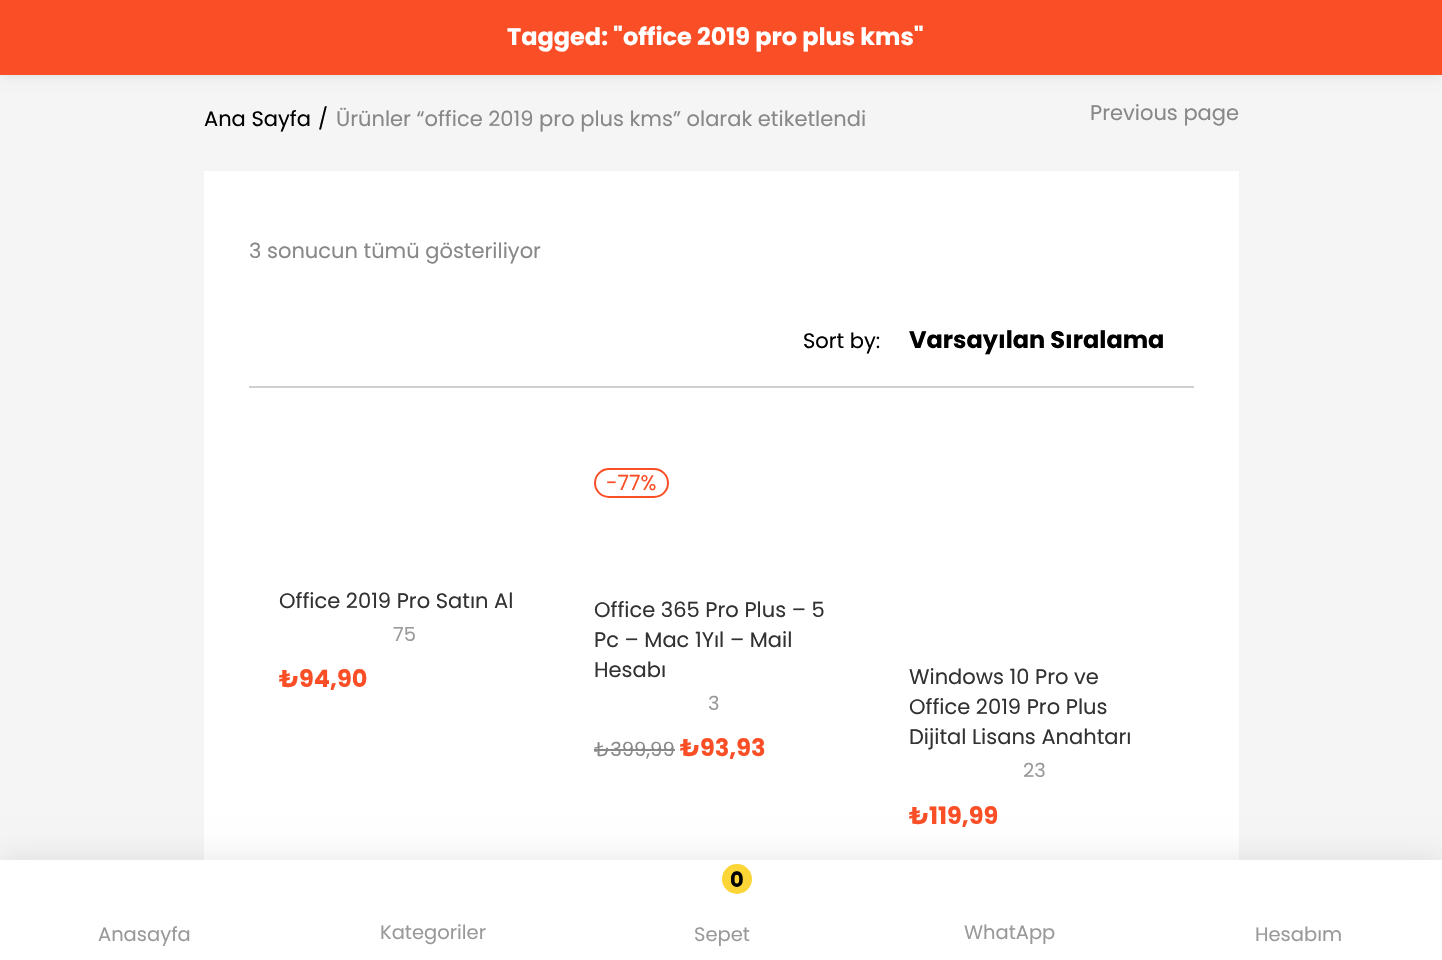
void draw(SkCanvas* c) {
SkPaint p;
p.setAntiAlias(true);
auto F=[&](const char* family, int weight, float size, bool italic = false){SkFontStyle style(weight, SkFontStyle::kNormal_Width,italic ? SkFontStyle::kItalic_Slant : SkFontStyle::kUpright_Slant);SkFont result(fontMgr->matchFamilyStyle(family, style), size);result.setSubpixel(true);return result;};
auto T=[&](const char* s, float x, float y, const SkFont& font){c->drawString(s, x, y, font, p);};
auto R=[&](float x, float y, float w, float h){c->drawRect(SkRect::MakeXYWH(x, y, w, h), p);};
c->clear(0xfff5f5f5);
p.setColor(0x1a000000);
p.setMaskFilter(SkMaskFilter::MakeBlur(kNormal_SkBlurStyle, 6));
c->drawRect(SkRect::MakeXYWH(0,0,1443,75),p);
p.setMaskFilter(nullptr);
p.setColor(0xfffa4f26);
R(0,0,1442,75);
auto f1 = F("Poppins",700,24);
p.setColor(0xffffffff);
T("Tagged: \"office 2019 pro plus kms\"",507,45,f1);
auto f2 = F("Poppins",400,21);
p.setColor(0xff000000);
T("Ana Sayfa",204,126,f2);
T("/",318,126,f2);
p.setColor(0xff888888);
T("Ürünler “office 2019 pro plus kms” olarak etiketlendi",336,126,f2);
T("Previous page",1090,120,f2);
p.setColor(0xffffffff);
R(204,171,1035,689);
p.setColor(0xffd0d0d0);
R(249,386,945,2);
p.setColor(0xff888888);
T("3 sonucun tümü gösteriliyor",249,258,f2);
p.setColor(0xff000000);
T("Sort by:",803,348,f2);
T("Varsayılan Sıralama",909,348,f1);
p.setColor(0xff323232);
T("Office 2019 Pro Satın Al",279,608,f2);
auto f3 = F("Poppins",400,19.5);
p.setColor(0xff999999);
T("75",393,641,f3);
p.setColor(0xfffa4f26);
T("₺94,90",279,687,f1);
p.setStroke(true);
p.setStrokeWidth(2);
c->drawRoundRect(SkRect::MakeXYWH(595,469,73,28),14,14,p);
p.setStroke(false);
T("-77%",606,490,f2);
p.setColor(0xff323232);
T("Office 365 Pro Plus – 5",594,617,f2);
T("Pc – Mac 1Yıl – Mail",594,647,f2);
T("Hesabı",594,677,f2);
p.setColor(0xff999999);
T("3",708,710,f3);
p.setColor(0xff888888);
T("₺399,99",594,756,f3);
R(594,749,81,2);
p.setColor(0xfffa4f26);
T("₺93,93",680,756,f1);
p.setColor(0xff323232);
T("Windows 10 Pro ve",909,684,f2);
T("Office 2019 Pro Plus",909,714,f2);
T("Dijital Lisans Anahtarı",909,744,f2);
p.setColor(0xff999999);
T("23",1023,777,f3);
p.setColor(0xfffa4f26);
T("₺119,99",909,824,f1);
p.setColor(0x1a000000);
p.setMaskFilter(SkMaskFilter::MakeBlur(kNormal_SkBlurStyle, 15));
c->drawRect(SkRect::MakeXYWH(0,860,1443,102),p);
p.setMaskFilter(nullptr);
p.setColor(0xffffffff);
R(0,860,1442,100);
p.setColor(0xff999999);
T("Anasayfa",98,941,f3);
T("Kategoriler",380,939,f3);
p.setColor(0xfffcd537);
c->drawCircle(737,879,15,p);
auto f4 = F("Poppins",700,21);
p.setColor(0xff000000);
T("0",730,887,f4);
p.setColor(0xff999999);
T("Sepet",694,941,f3);
T("WhatApp",964,939,f3);
T("Hesabım",1255,941,f3);
}
